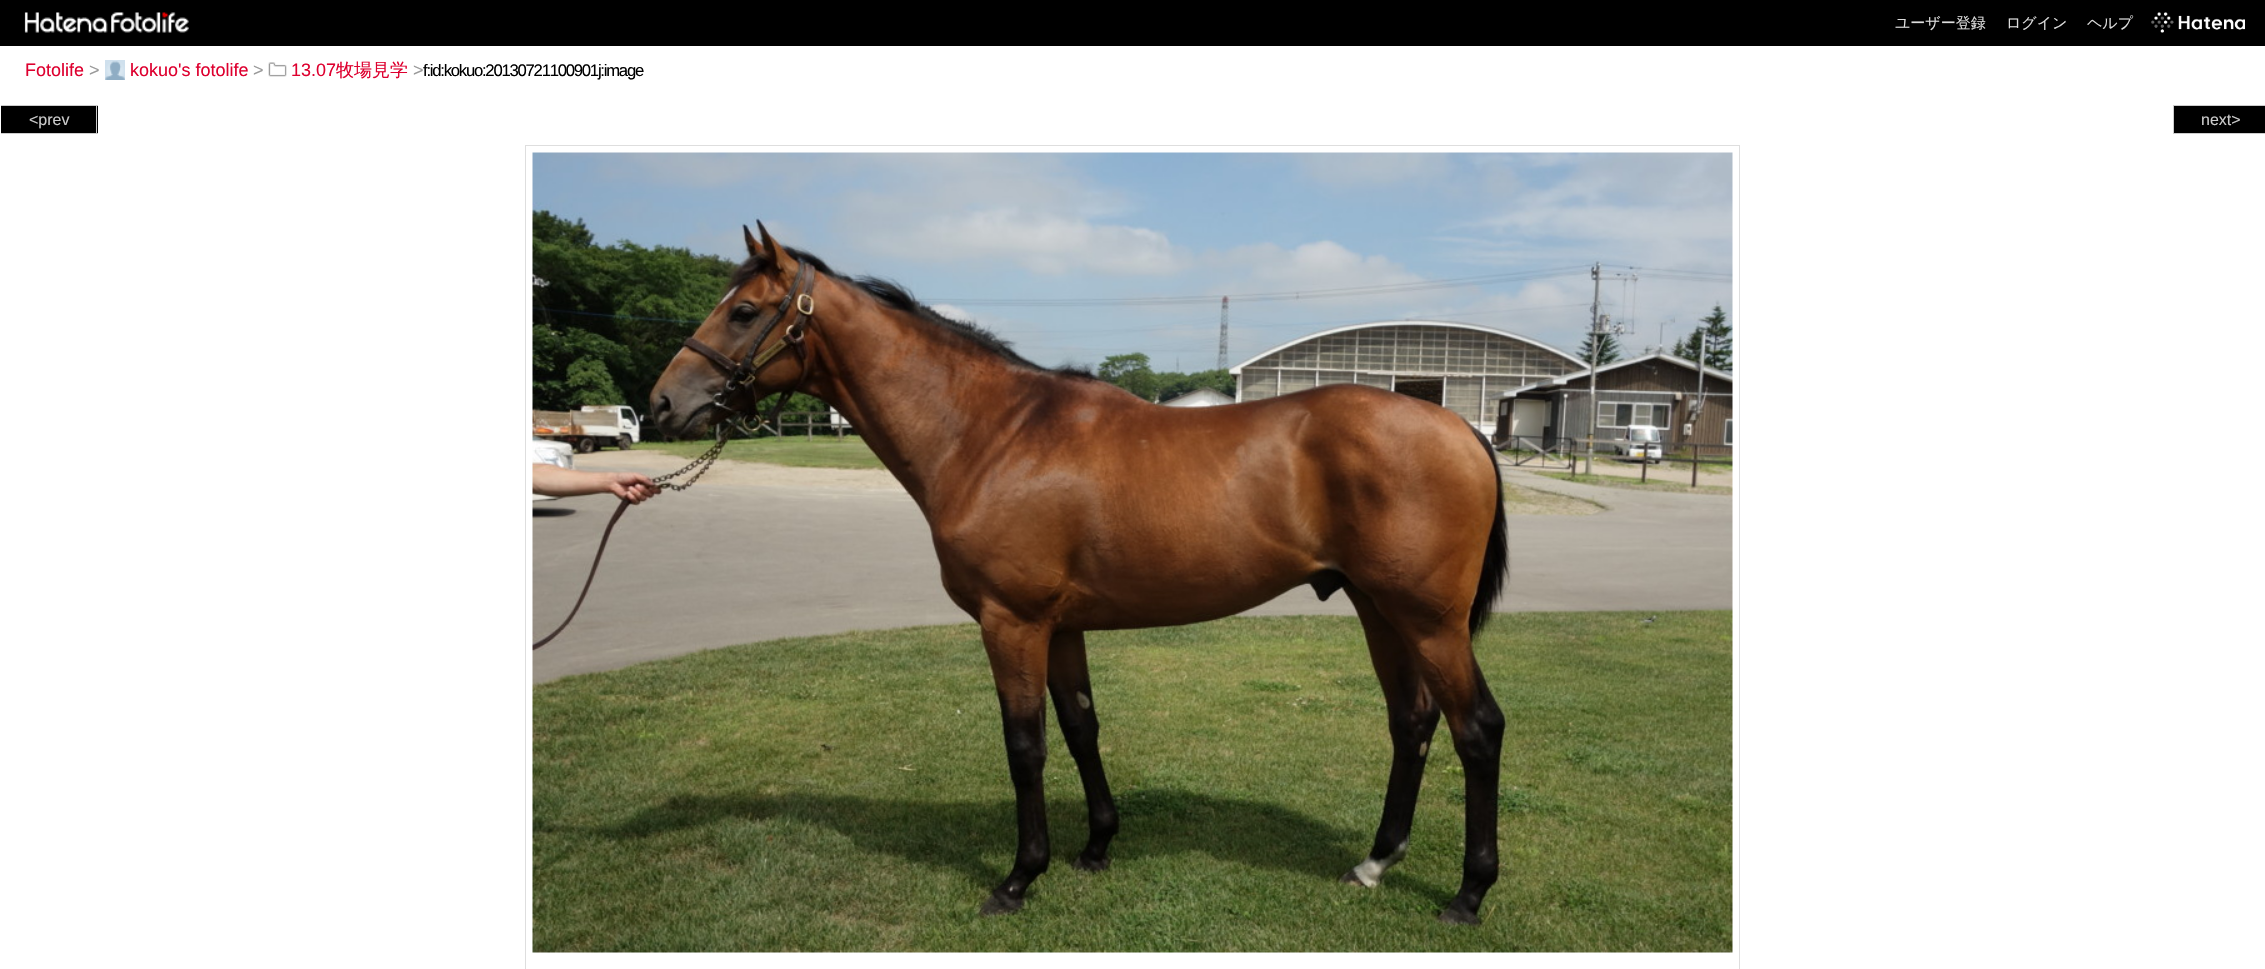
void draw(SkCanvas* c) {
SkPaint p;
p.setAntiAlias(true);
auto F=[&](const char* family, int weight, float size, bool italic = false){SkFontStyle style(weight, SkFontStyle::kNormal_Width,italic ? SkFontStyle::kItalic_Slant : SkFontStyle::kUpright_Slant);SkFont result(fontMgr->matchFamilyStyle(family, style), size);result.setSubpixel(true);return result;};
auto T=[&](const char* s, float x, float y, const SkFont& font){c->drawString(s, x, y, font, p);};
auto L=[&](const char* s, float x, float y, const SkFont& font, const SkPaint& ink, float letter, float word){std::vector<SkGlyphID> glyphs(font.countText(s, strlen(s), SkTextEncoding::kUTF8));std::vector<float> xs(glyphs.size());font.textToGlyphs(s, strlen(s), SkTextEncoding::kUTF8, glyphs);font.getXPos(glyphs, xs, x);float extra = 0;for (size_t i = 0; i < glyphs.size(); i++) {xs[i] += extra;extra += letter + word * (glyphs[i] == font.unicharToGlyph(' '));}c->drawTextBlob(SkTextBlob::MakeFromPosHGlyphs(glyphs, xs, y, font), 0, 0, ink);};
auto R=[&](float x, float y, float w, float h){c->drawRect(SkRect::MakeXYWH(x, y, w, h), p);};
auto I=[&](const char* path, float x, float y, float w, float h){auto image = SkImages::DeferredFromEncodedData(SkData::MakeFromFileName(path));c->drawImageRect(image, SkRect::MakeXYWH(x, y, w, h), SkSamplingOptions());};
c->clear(0xffffffff);
p.setColor(0xff000000);
R(0,0,2265,46);
I("1.png",24,12,84,21);
I("2.png",111,12,78,21);
auto f1 = F("WenQuanYi Zen Hei",500,15);
p.setColor(0xffdddddd);
T("ユーザー登録",1895,28,f1);
T("ログイン",2006,28,f1);
T("ヘルプ",2087,28,f1);
I("3.png",2151,12,94,21);
auto f2 = F("Liberation Sans",400,18);
p.setColor(0xffde002f);
T("Fotolife",25,76,f2);
p.setColor(0xff999999);
T(">",89,76,f2);
I("4.png",105,60,20,20);
p.setColor(0xffde002f);
T("kokuo's fotolife",130,76,f2);
p.setColor(0xff999999);
T(">",253,76,f2);
I("5.png",268,62,19,15);
p.setColor(0xffde002f);
T("13.07",291,76,f2);
auto f3 = F("WenQuanYi Zen Hei",500,18);
T("牧場見学",336,76,f3);
p.setColor(0xff999999);
T(">",413,76,f2);
auto f4 = F("Liberation Sans",400,16.7);
p.setColor(0xff000000);
L("f:id:kokuo:20130721100901j:image",423,76,f4,p,-1.25,0);
R(1,106,97,27);
p.setColor(0xffcccccc);
R(1,105,97,1);
R(96,105,1,29);
R(1,133,97,1);
auto f5 = F("Liberation Sans",400,16);
T("<prev",29,125,f5);
p.setColor(0xff000000);
R(2174,106,91,27);
p.setColor(0xffcccccc);
R(2173,105,92,1);
R(2173,133,92,1);
R(2173,105,1,29);
T("next>",2201,125,f5);
p.setStroke(true);
p.setStrokeWidth(1);
p.setColor(0xffdedede);
c->drawRect(SkRect::MakeXYWH(525.5,145.5,1214,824),p);
I("6.png",532,152,1201,801);
}
